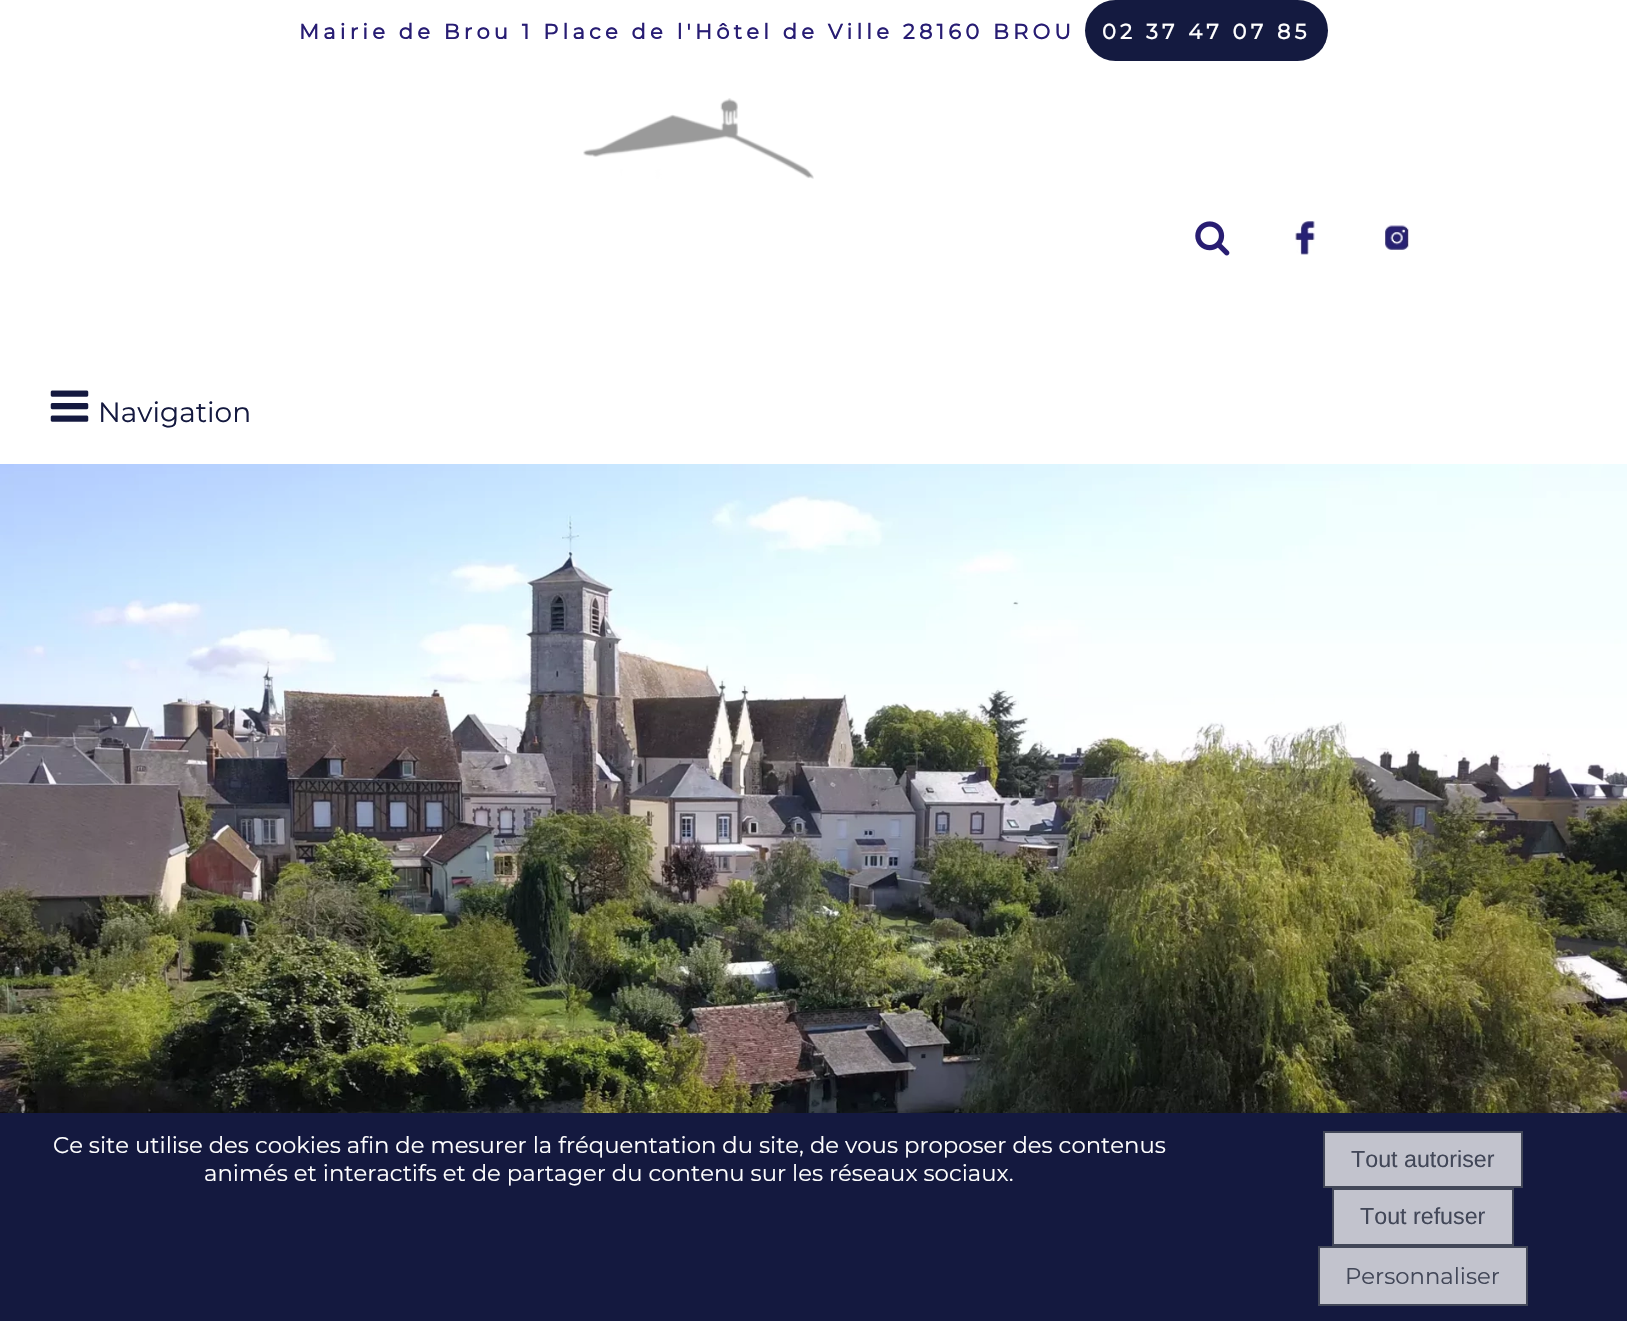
void draw(SkCanvas* c) {
SkPaint p;
p.setAntiAlias(true);
auto F=[&](const char* family, int weight, float size, bool italic = false){SkFontStyle style(weight, SkFontStyle::kNormal_Width,italic ? SkFontStyle::kItalic_Slant : SkFontStyle::kUpright_Slant);SkFont result(fontMgr->matchFamilyStyle(family, style), size);result.setSubpixel(true);return result;};
auto T=[&](const char* s, float x, float y, const SkFont& font){c->drawString(s, x, y, font, p);};
auto L=[&](const char* s, float x, float y, const SkFont& font, const SkPaint& ink, float letter, float word){std::vector<SkGlyphID> glyphs(font.countText(s, strlen(s), SkTextEncoding::kUTF8));std::vector<float> xs(glyphs.size());font.textToGlyphs(s, strlen(s), SkTextEncoding::kUTF8, glyphs);font.getXPos(glyphs, xs, x);float extra = 0;for (size_t i = 0; i < glyphs.size(); i++) {xs[i] += extra;extra += letter + word * (glyphs[i] == font.unicharToGlyph(' '));}c->drawTextBlob(SkTextBlob::MakeFromPosHGlyphs(glyphs, xs, y, font), 0, 0, ink);};
auto R=[&](float x, float y, float w, float h){c->drawRect(SkRect::MakeXYWH(x, y, w, h), p);};
auto Q=[&](float x, float y, float w, float h, float radius){c->drawRoundRect(SkRect::MakeXYWH(x, y, w, h), radius, radius, p);};
auto I=[&](const char* path, float x, float y, float w, float h){auto image = SkImages::DeferredFromEncodedData(SkData::MakeFromFileName(path));c->drawImageRect(image, SkRect::MakeXYWH(x, y, w, h), SkSamplingOptions());};
c->clear(0xffffffff);
auto f1 = F("Montserrat",700,21);
p.setColor(0xff271c73);
L("Mairie de Brou 1 Place de l'Hôtel de Ville 28160 BROU",299,39,f1,p,4.2,0);
p.setColor(0xff141a40);
Q(1085,0,243,61,30.5);
p.setColor(0xffffffff);
L("02 37 47 07 85",1102,39,f1,p,4.2,0);
I("1.png",583,98,231,81);
I("2.png",50,390,39,32);
auto f2 = F("Montserrat",100,28);
p.setColor(0xff14193f);
T("Navigation",98,422,f2);
I("3.png",0,464,1627,649);
I("4.png",1195,221,35,35);
I("5.png",1295,221,20,34);
I("6.png",1385,225,24,25);
R(0,1113,1627,208);
auto f3 = F("Montserrat",100,22.75);
p.setColor(0xffffffff);
T("Ce site utilise des cookies afin de mesurer la fréquentation du site, de vous proposer des contenus",53,1153,f3);
T("animés et interactifs et de partager du contenu sur les réseaux sociaux.",204,1181,f3);
p.setColor(0xffc2c3cd);
c->drawRect(SkRect::MakeXYWH(1324,1132,198,55),p);
p.setStroke(true);
p.setStrokeWidth(2);
p.setColor(0xff424758);
c->drawRect(SkRect::MakeXYWH(1324,1132,198,55),p);
auto f4 = F("Liberation Sans",400,23.25);
p.setStroke(false);
T("Tout autoriser",1351,1167,f4);
p.setColor(0xffc2c3cd);
c->drawRect(SkRect::MakeXYWH(1333,1189,180,56),p);
p.setStroke(true);
p.setColor(0xff424758);
c->drawRect(SkRect::MakeXYWH(1333,1189,180,56),p);
p.setStroke(false);
T("Tout refuser",1360,1224,f4);
p.setColor(0xffc2c3cd);
c->drawRect(SkRect::MakeXYWH(1319,1247,208,58),p);
p.setStroke(true);
p.setColor(0xff424758);
c->drawRect(SkRect::MakeXYWH(1319,1247,208,58),p);
p.setStroke(false);
T("Personnaliser",1345,1284,f3);
}
